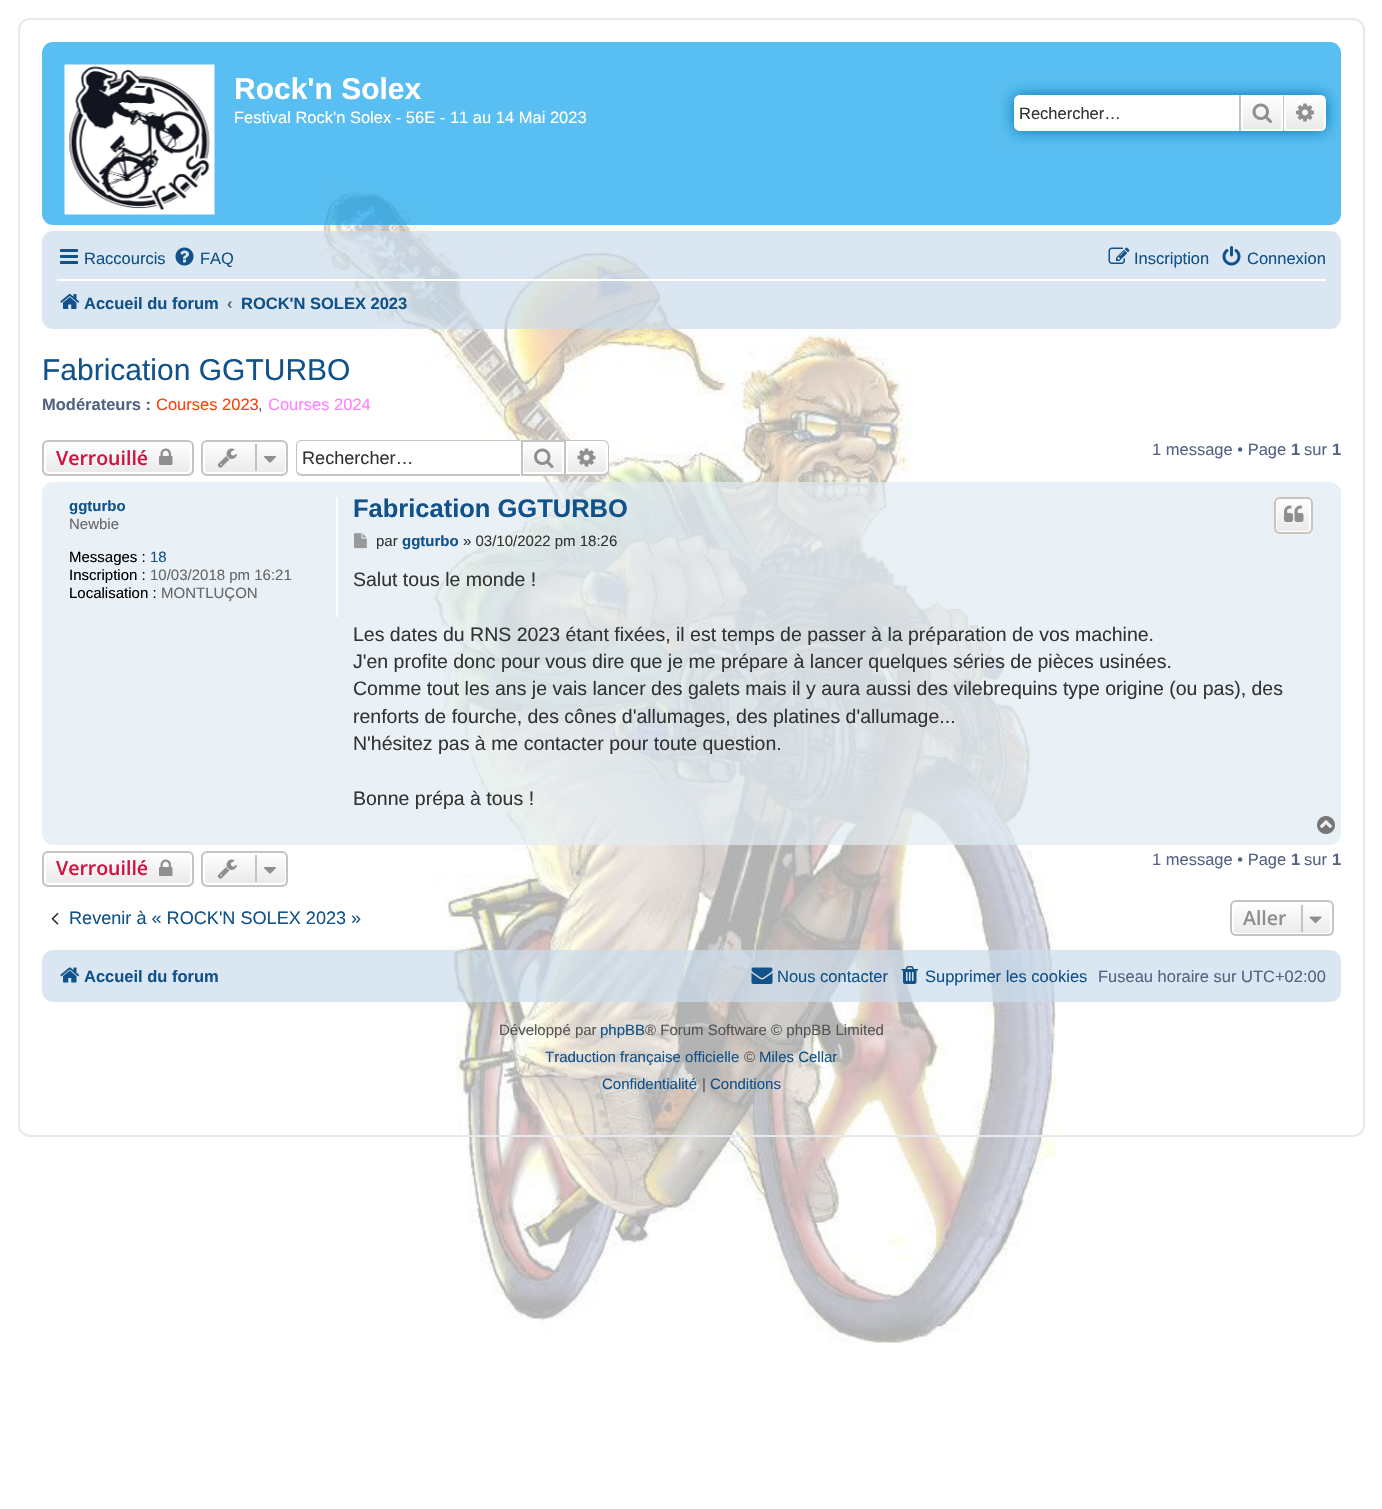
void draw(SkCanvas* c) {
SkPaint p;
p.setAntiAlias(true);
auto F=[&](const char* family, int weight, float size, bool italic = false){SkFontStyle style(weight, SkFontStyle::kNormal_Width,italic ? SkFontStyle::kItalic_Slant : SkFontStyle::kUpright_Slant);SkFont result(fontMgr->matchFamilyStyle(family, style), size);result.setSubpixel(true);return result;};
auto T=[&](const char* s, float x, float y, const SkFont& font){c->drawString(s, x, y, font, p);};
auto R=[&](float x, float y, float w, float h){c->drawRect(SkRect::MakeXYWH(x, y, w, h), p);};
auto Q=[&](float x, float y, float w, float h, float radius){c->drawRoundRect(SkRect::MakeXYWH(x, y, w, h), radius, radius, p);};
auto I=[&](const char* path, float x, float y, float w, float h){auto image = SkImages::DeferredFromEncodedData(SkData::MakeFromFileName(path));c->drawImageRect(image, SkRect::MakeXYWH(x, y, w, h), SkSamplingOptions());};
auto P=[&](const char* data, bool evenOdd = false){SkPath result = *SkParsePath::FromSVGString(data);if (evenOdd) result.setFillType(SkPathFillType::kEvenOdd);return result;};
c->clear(0xffffffff);
I("1.png",312,178,753,1165);
p.setStroke(true);
p.setStrokeWidth(2);
p.setColor(0xffe6e9ed);
c->drawRoundRect(SkRect::MakeXYWH(19,19,1345,1117),11,11,p);
p.setStroke(false);
p.setColor(0xb312a3eb);
Q(42,42,1299,183,11);
I("2.png",64,64,151,151);
auto f1 = F("Liberation Sans",700,30);
p.setColor(0xffffffff);
T("Rock'n Solex",234,99,f1);
auto f2 = F("Liberation Sans",400,16.5);
T("Festival Rock'n Solex - 56E - 11 au 14 Mai 2023",234,123,f2);
p.setColor(0xff0075b0);
p.setMaskFilter(SkMaskFilter::MakeBlur(kNormal_SkBlurStyle, 7.5));
c->drawRoundRect(SkRect::MakeXYWH(1014,95,312,36),6,6,p);
p.setMaskFilter(nullptr);
p.setColor(0xffffffff);
c->drawPath(P("M1020 95h219v36h-219c-3.5 0-6-2.5-6-6v-24c0-3.5 2.5-6 6-6z"),p);
p.setColor(0xff333333);
T("Rechercher…",1019,119,f2);
{
const SkColor colors[] = {0xffffffff,0xffe9e9e9};
const float stops[] = {0,1};
const SkPoint ends[] = {{1262,95}, {1262,131}};
p.setShader(SkGradientShader::MakeLinear(ends, colors, stops, 2, SkTileMode::kClamp));
p.setAlpha(255);
}
R(1243,97,38,32);
p.setStroke(true);
p.setShader(nullptr);
p.setColor(0xffffffff);
c->drawRect(SkRect::MakeXYWH(1242,96,40,34),p);
p.setStroke(false);
p.setColor(0xffc7c3bf);
R(1283,95,1,36);
R(1239,95,2,36);
I("3.png",1252,103,20,20);
{
const SkColor colors[] = {0xffffffff,0xffe9e9e9};
const float stops[] = {0,1};
const SkPoint ends[] = {{1305,95}, {1305,131}};
p.setShader(SkGradientShader::MakeLinear(ends, colors, stops, 2, SkTileMode::kClamp));
p.setAlpha(255);
}
c->drawPath(P("M1285 96h35c3 0 5 2 5 5v24c0 3-2 5-5 5h-35z"),p);
p.setStroke(true);
p.setShader(nullptr);
p.setColor(0xffffffff);
c->drawPath(P("M1285 96h35c3 0 5 2 5 5v24c0 3-2 5-5 5h-35z"),p);
I("4.png",1296,103,18,19);
p.setStroke(false);
p.setColor(0xb3cadceb);
Q(42,231,1299,98,11);
I("5.png",60,249,18,15);
p.setColor(0xff105289);
T("Raccourcis",84,264,f2);
I("6.png",175,247,19,19);
T("FAQ",200,264,f2);
I("7.png",1108,247,22,17);
T("Inscription",1134,264,f2);
I("8.png",1222,246,19,20);
T("Connexion",1247,264,f2);
p.setColor(0xffffffff);
R(57,279,1269,2);
I("9.png",60,294,20,15);
auto f3 = F("Liberation Sans",700,16.5);
p.setColor(0xff105289);
T("Accueil du forum",84,309,f3);
p.setColor(0xff536482);
T("‹",227,309,f3);
c->save();
c->clipRect(SkRect::MakeXYWH(242,285,165,36));
p.setColor(0xff105289);
T("ROCK'N SOLEX 2023",241,309,f3);
c->restore();
auto f4 = F("Liberation Sans",400,30);
T("Fabrication GGTURBO",42,380,f4);
p.setColor(0xff536482);
T("Modérateurs :",42,410,f3);
p.setColor(0xffff4000);
T("Courses 2023",156,410,f2);
p.setColor(0xff536482);
T(",",258,410,f2);
p.setColor(0xffff80ff);
T("Courses 2024",268,410,f2);
c->save();
c->clipPath(P("M48 440h140c3.5 0 6 2.5 6 6v24c0 3.5-2.5 6-6 6h-140c-3.5 0-6-2.5-6-6v-24c0-3.5 2.5-6 6-6z"),true);
{
const SkColor colors[] = {0xffffffff,0xffe9e9e9};
const float stops[] = {0,1};
const SkPoint ends[] = {{118,441}, {118,474}};
p.setShader(SkGradientShader::MakeLinear(ends, colors, stops, 2, SkTileMode::kClamp));
p.setAlpha(255);
}
R(42,441,152,33);
c->restore();
p.setStroke(true);
p.setShader(nullptr);
p.setColor(0xffffffff);
c->drawRoundRect(SkRect::MakeXYWH(45,442,146,31),4,4,p);
p.setColor(0xffc7c3bf);
c->drawRoundRect(SkRect::MakeXYWH(43,441,150,34),5,5,p);
auto f5 = F("Open Sans",600,19.5);
p.setStroke(false);
p.setColor(0xffd31141);
T("Verrouillé",56,465,f5);
I("10.png",159,448,14,17);
c->save();
c->clipPath(P("M207 440h75c3.5 0 6 2.5 6 6v24c0 3.5-2.5 6-6 6h-75c-3.5 0-6-2.5-6-6v-24c0-3.5 2.5-6 6-6z"),true);
{
const SkColor colors[] = {0xffffffff,0xffe9e9e9};
const float stops[] = {0,1};
const SkPoint ends[] = {{245,441}, {245,474}};
p.setShader(SkGradientShader::MakeLinear(ends, colors, stops, 2, SkTileMode::kClamp));
p.setAlpha(255);
}
R(201,441,87,33);
c->restore();
p.setStroke(true);
p.setShader(nullptr);
p.setColor(0xffffffff);
c->drawRoundRect(SkRect::MakeXYWH(204,442,82,31),4,4,p);
p.setColor(0xffc7c3bf);
c->drawRoundRect(SkRect::MakeXYWH(202,441,85,34),5,5,p);
I("11.png",217,448,20,20);
p.setStroke(false);
R(255,444,2,27);
I("12.png",264,456,12,7);
p.setColor(0xffffffff);
c->drawPath(P("M302 441h219v33h-219c-3 0-5-2-5-5v-23c0-3 2-5 5-5z"),p);
p.setColor(0xffc7c3bf);
c->drawPath(P("M302 440h218v36h-218c-4 0-6-3-6-6v-24c0-4 2-6 6-6zm0 1h218v33h-218c-3 0-5-2-5-4v-24c0-3 2-5 5-5z",true),p);
auto f6 = F("Liberation Sans",400,18.1);
p.setColor(0xff333333);
T("Rechercher…",302,464,f6);
{
const SkColor colors[] = {0xffffffff,0xffe9e9e9};
const float stops[] = {0,1};
const SkPoint ends[] = {{543,441}, {543,474}};
p.setShader(SkGradientShader::MakeLinear(ends, colors, stops, 2, SkTileMode::kClamp));
p.setAlpha(255);
}
R(524,443,38,29);
p.setStroke(true);
p.setShader(nullptr);
p.setColor(0xffffffff);
c->drawRect(SkRect::MakeXYWH(523,442,40,31),p);
p.setColor(0xffc7c3bf);
c->drawRect(SkRect::MakeXYWH(522,441,43,34),p);
I("13.png",534,448,20,20);
p.setStroke(false);
{
const SkColor colors[] = {0xffffffff,0xffe9e9e9};
const float stops[] = {0,1};
const SkPoint ends[] = {{587,441}, {587,474}};
p.setShader(SkGradientShader::MakeLinear(ends, colors, stops, 2, SkTileMode::kClamp));
p.setAlpha(255);
}
c->drawPath(P("M567 442h36c2 0 4 2 4 4v23c0 2-2 4-4 4h-36z"),p);
p.setStroke(true);
p.setShader(nullptr);
p.setColor(0xffffffff);
c->drawPath(P("M567 442h36c2 0 4 2 4 4v23c0 2-2 4-4 4h-36z"),p);
p.setStroke(false);
p.setColor(0xffc7c3bf);
c->drawPath(P("M566 440h37c3 0 6 2 6 6v24c0 3-3 6-6 6h-37zm0 1h37c2 0 5 2 5 5v24c0 2-3 4-5 4h-37z",true),p);
I("14.png",577,448,19,19);
p.setColor(0xff536482);
T("1 message • Page",1152,455,f2);
T("1",1291,455,f3);
T("sur",1304,455,f2);
T("1",1332,455,f3);
p.setColor(0xb3e1ebf2);
Q(42,482,1299,363,11);
p.setColor(0xffffffff);
R(336,497,2,120);
auto f7 = F("Liberation Sans",700,15);
p.setColor(0xff105289);
T("ggturbo",69,511,f7);
auto f8 = F("Liberation Sans",400,15);
p.setColor(0xff666666);
T("Newbie",69,529,f8);
p.setColor(0xff000000);
T("Messages :",69,562,f8);
p.setColor(0xff105289);
T("18",150,562,f8);
p.setColor(0xff000000);
T("Inscription :",69,580,f8);
p.setColor(0xff666666);
T("10/03/2018 pm 16:21",150,580,f8);
p.setColor(0xff000000);
T("Localisation :",69,598,f8);
p.setColor(0xff666666);
T("MONTLUÇON",161,598,f8);
auto f9 = F("Liberation Sans",700,25.5);
p.setColor(0xff105289);
T("Fabrication GGTURBO",353,517,f9);
c->save();
c->clipPath(P("M1280 497h27c3.5 0 6 2.5 6 6v25c0 3.5-2.5 6-6 6h-27c-3.5 0-6-2.5-6-6v-25c0-3.5 2.5-6 6-6z"),true);
{
const SkColor colors[] = {0xffffffff,0xffe9e9e9};
const float stops[] = {0,1};
const SkPoint ends[] = {{1293,498}, {1293,533}};
p.setShader(SkGradientShader::MakeLinear(ends, colors, stops, 2, SkTileMode::kClamp));
p.setAlpha(255);
}
R(1274,498,39,35);
c->restore();
p.setStroke(true);
p.setShader(nullptr);
p.setColor(0xffffffff);
c->drawRoundRect(SkRect::MakeXYWH(1276,499,34,33),4,4,p);
p.setColor(0xffc7c3bf);
c->drawRoundRect(SkRect::MakeXYWH(1275,498,37,35),5,5,p);
I("15.png",1284,505,20,17);
I("16.png",354,533,13,16);
p.setStroke(false);
p.setColor(0xff333333);
T("par",376,546,f8);
p.setColor(0xff105289);
T("ggturbo",402,546,f7);
p.setColor(0xff333333);
T("» 03/10/2022 pm 18:26",463,546,f8);
auto f10 = F("Liberation Sans",400,19.5);
T("Salut tous le monde !",353,586,f10);
T("Les dates du RNS 2023 étant fixées, il est temps de passer à la préparation de vos machine.",353,641,f10);
T("J'en profite donc pour vous dire que je me prépare à lancer quelques séries de pièces usinées.",353,668,f10);
T("Comme tout les ans je vais lancer des galets mais il y aura aussi des vilebrequins type origine (ou pas), des",353,695,f10);
T("renforts de fourche, des cônes d'allumages, des platines d'allumage...",353,723,f10);
T("N'hésitez pas à me contacter pour toute question.",353,750,f10);
T("Bonne prépa à tous !",353,805,f10);
I("17.png",1317,816,18,18);
c->save();
c->clipPath(P("M48 851h140c3.5 0 6 2.5 6 6v24c0 3.5-2.5 6-6 6h-140c-3.5 0-6-2.5-6-6v-24c0-3.5 2.5-6 6-6z"),true);
{
const SkColor colors[] = {0xffffffff,0xffe9e9e9};
const float stops[] = {0,1};
const SkPoint ends[] = {{118,852}, {118,885}};
p.setShader(SkGradientShader::MakeLinear(ends, colors, stops, 2, SkTileMode::kClamp));
p.setAlpha(255);
}
R(42,852,152,33);
c->restore();
p.setStroke(true);
p.setShader(nullptr);
p.setColor(0xffffffff);
c->drawRoundRect(SkRect::MakeXYWH(45,853,146,31),4,4,p);
p.setColor(0xffc7c3bf);
c->drawRoundRect(SkRect::MakeXYWH(43,852,150,34),5,5,p);
p.setStroke(false);
p.setColor(0xffd31141);
T("Verrouillé",56,875,f5);
I("10.png",159,859,14,17);
c->save();
c->clipPath(P("M207 851h75c3.5 0 6 2.5 6 6v24c0 3.5-2.5 6-6 6h-75c-3.5 0-6-2.5-6-6v-24c0-3.5 2.5-6 6-6z"),true);
{
const SkColor colors[] = {0xffffffff,0xffe9e9e9};
const float stops[] = {0,1};
const SkPoint ends[] = {{245,852}, {245,885}};
p.setShader(SkGradientShader::MakeLinear(ends, colors, stops, 2, SkTileMode::kClamp));
p.setAlpha(255);
}
R(201,852,87,33);
c->restore();
p.setStroke(true);
p.setShader(nullptr);
p.setColor(0xffffffff);
c->drawRoundRect(SkRect::MakeXYWH(204,853,82,31),4,4,p);
p.setColor(0xffc7c3bf);
c->drawRoundRect(SkRect::MakeXYWH(202,852,85,34),5,5,p);
I("11.png",217,859,20,20);
p.setStroke(false);
R(255,855,2,27);
I("12.png",264,867,12,7);
p.setColor(0xff536482);
T("1 message • Page",1152,865,f2);
T("1",1291,865,f3);
T("sur",1304,865,f2);
T("1",1332,865,f3);
I("18.png",51,913,8,12);
p.setColor(0xff105289);
T("Revenir à « ROCK'N SOLEX 2023 »",69,924,f6);
c->save();
c->clipPath(P("M1236 900h92c3.5 0 6 2.5 6 6v24c0 3.5-2.5 6-6 6h-92c-3.5 0-6-2.5-6-6v-24c0-3.5 2.5-6 6-6z"),true);
{
const SkColor colors[] = {0xffffffff,0xffe9e9e9};
const float stops[] = {0,1};
const SkPoint ends[] = {{1282,902}, {1282,935}};
p.setShader(SkGradientShader::MakeLinear(ends, colors, stops, 2, SkTileMode::kClamp));
p.setAlpha(255);
}
R(1230,902,104,33);
c->restore();
p.setStroke(true);
p.setShader(nullptr);
p.setColor(0xffffffff);
c->drawRoundRect(SkRect::MakeXYWH(1233,903,98,31),4,4,p);
p.setColor(0xffc7c3bf);
c->drawRoundRect(SkRect::MakeXYWH(1231,901,102,34),5,5,p);
p.setStroke(false);
p.setColor(0xff8f8f8f);
T("Aller",1243,925,f5);
p.setColor(0xffc7c3bf);
R(1301,905,2,27);
I("19.png",1309,916,13,8);
p.setColor(0xb3cadceb);
Q(42,950,1299,52,11);
I("20.png",60,967,20,16);
p.setColor(0xff105289);
T("Accueil du forum",84,982,f3);
I("21.png",751,967,22,17);
T("Nous contacter",777,982,f2);
I("22.png",901,966,17,18);
T("Supprimer les cookies",925,982,f2);
p.setColor(0xff536482);
T("Fuseau horaire sur UTC+02:00",1098,982,f2);
p.setColor(0xff555555);
T("Développé par",499,1035,f8);
p.setColor(0xff105289);
T("phpBB",600,1035,f8);
p.setColor(0xff555555);
T("® Forum Software © phpBB Limited",645,1035,f8);
p.setColor(0xff105289);
T("Traduction française officielle",545,1062,f8);
p.setColor(0xff555555);
T("©",744,1062,f8);
p.setColor(0xff105289);
T("Miles Cellar",759,1062,f8);
T("Confidentialité",602,1089,f8);
p.setColor(0xff555555);
T("|",702,1089,f8);
p.setColor(0xff105289);
T("Conditions",710,1089,f8);
}
